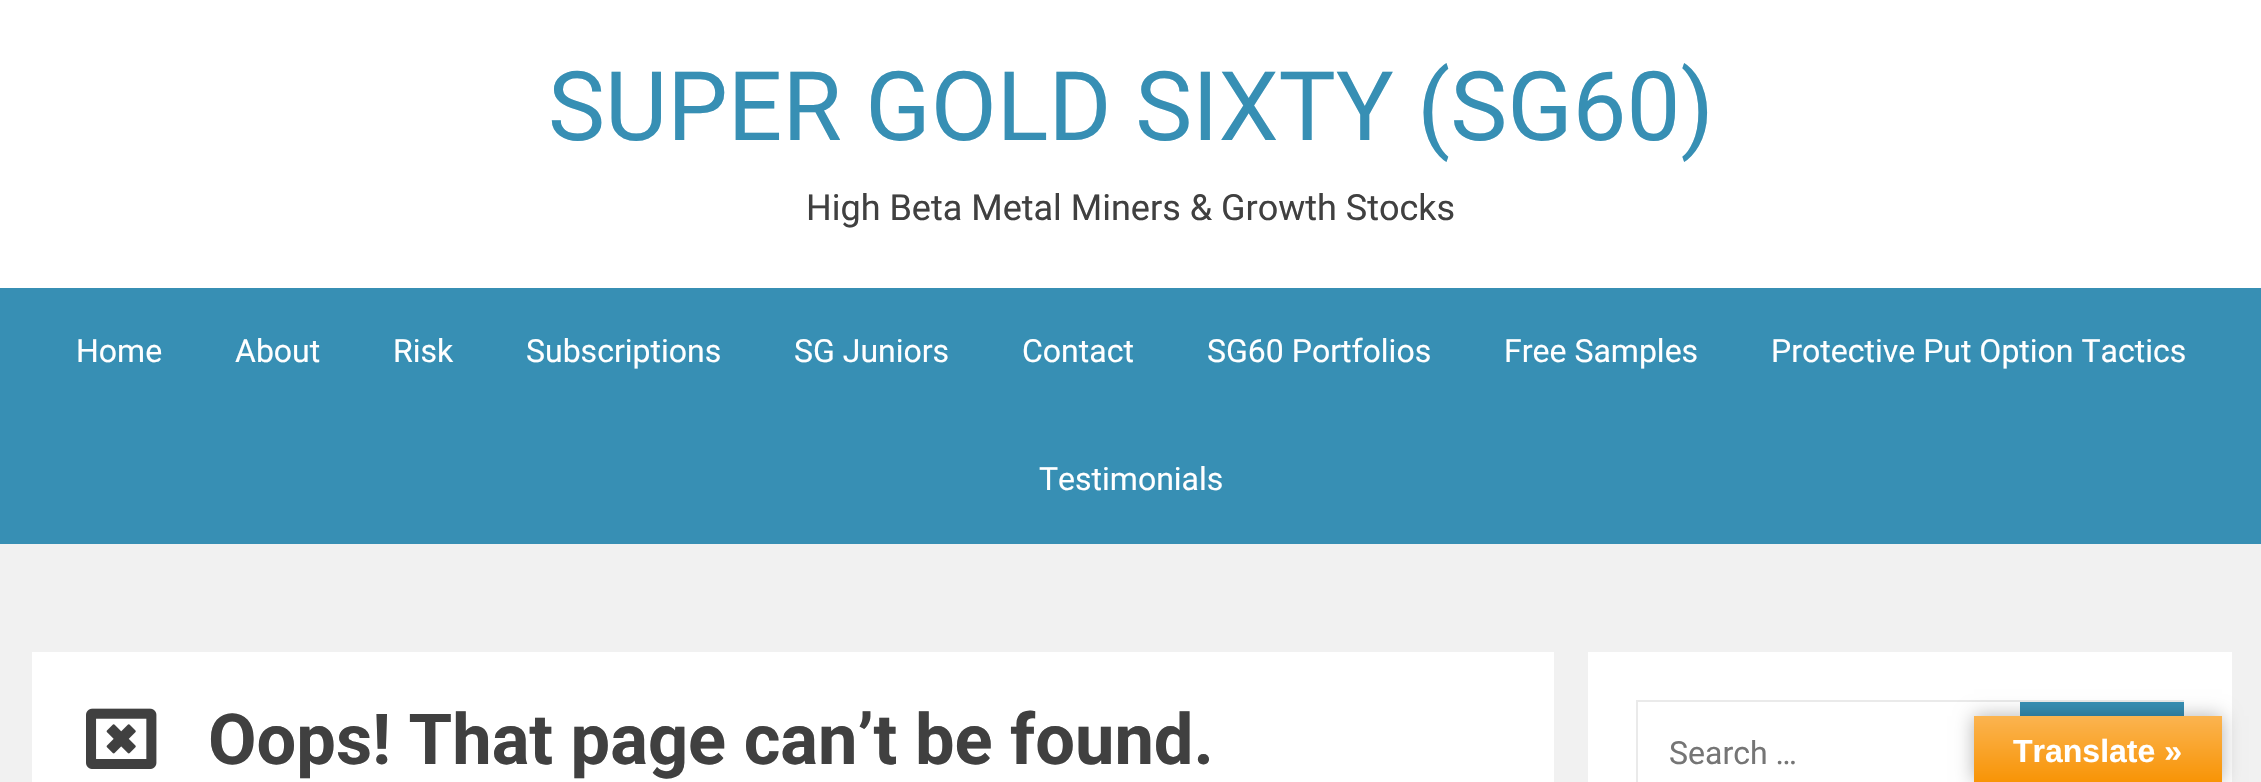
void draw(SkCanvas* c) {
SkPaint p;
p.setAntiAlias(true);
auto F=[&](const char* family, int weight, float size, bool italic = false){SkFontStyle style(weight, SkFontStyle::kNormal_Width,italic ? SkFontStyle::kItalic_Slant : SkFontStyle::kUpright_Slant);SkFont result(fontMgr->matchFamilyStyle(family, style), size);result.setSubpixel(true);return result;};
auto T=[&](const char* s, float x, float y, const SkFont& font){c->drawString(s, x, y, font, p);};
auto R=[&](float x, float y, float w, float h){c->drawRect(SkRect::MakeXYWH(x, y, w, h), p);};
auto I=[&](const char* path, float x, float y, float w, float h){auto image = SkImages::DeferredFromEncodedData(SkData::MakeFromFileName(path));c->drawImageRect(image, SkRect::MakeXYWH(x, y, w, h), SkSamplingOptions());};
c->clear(0xfff1f1f1);
p.setColor(0xffffffff);
R(0,0,2261,288);
auto f1 = F("Roboto",400,96);
p.setColor(0xff378fb4);
T("SUPER GOLD SIXTY (SG60)",548,140,f1);
auto f2 = F("Roboto",400,36);
p.setColor(0xff404040);
T("High Beta Metal Miners & Growth Stocks",806,220,f2);
p.setColor(0xff378fb4);
R(0,288,2261,256);
auto f3 = F("Roboto",400,32);
p.setColor(0xffffffff);
T("Home",76,362,f3);
T("About",235,362,f3);
T("Risk",393,362,f3);
T("Subscriptions",526,362,f3);
T("SG Juniors",794,362,f3);
T("Contact",1022,362,f3);
T("SG60 Portfolios",1207,362,f3);
T("Free Samples",1504,362,f3);
T("Protective Put Option Tactics",1771,362,f3);
T("Testimonials",1039,490,f3);
R(32,652,1522,130);
I("1.png",86,708,71,61);
auto f4 = F("Roboto",700,70.4);
p.setColor(0xff404040);
T("Oops! That page can’t be found.",208,764,f4);
p.setColor(0xffffffff);
R(1588,652,644,130);
p.setStroke(true);
p.setStrokeWidth(2);
p.setColor(0xffeaeaea);
c->drawRect(SkRect::MakeXYWH(1637,701,546,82),p);
p.setStroke(false);
p.setColor(0xff378fb4);
R(2020,702,164,14);
p.setColor(0xff757575);
T("Search …",1669,764,f3);
p.setColor(0x4d000000);
p.setMaskFilter(SkMaskFilter::MakeBlur(kNormal_SkBlurStyle, 9));
c->drawRect(SkRect::MakeXYWH(1974,716,248,66),p);
p.setMaskFilter(nullptr);
{
const SkColor colors[] = {0xfffbb450,0xfff89406};
const float stops[] = {0,1};
const SkPoint ends[] = {{2098,716}, {2098,782}};
p.setShader(SkGradientShader::MakeLinear(ends, colors, stops, 2, SkTileMode::kClamp));
p.setAlpha(255);
}
R(1974,716,248,66);
auto f5 = F("Liberation Sans",700,32);
p.setShader(nullptr);
p.setColor(0xffffffff);
T("Translate »",2013,762,f5);
}
